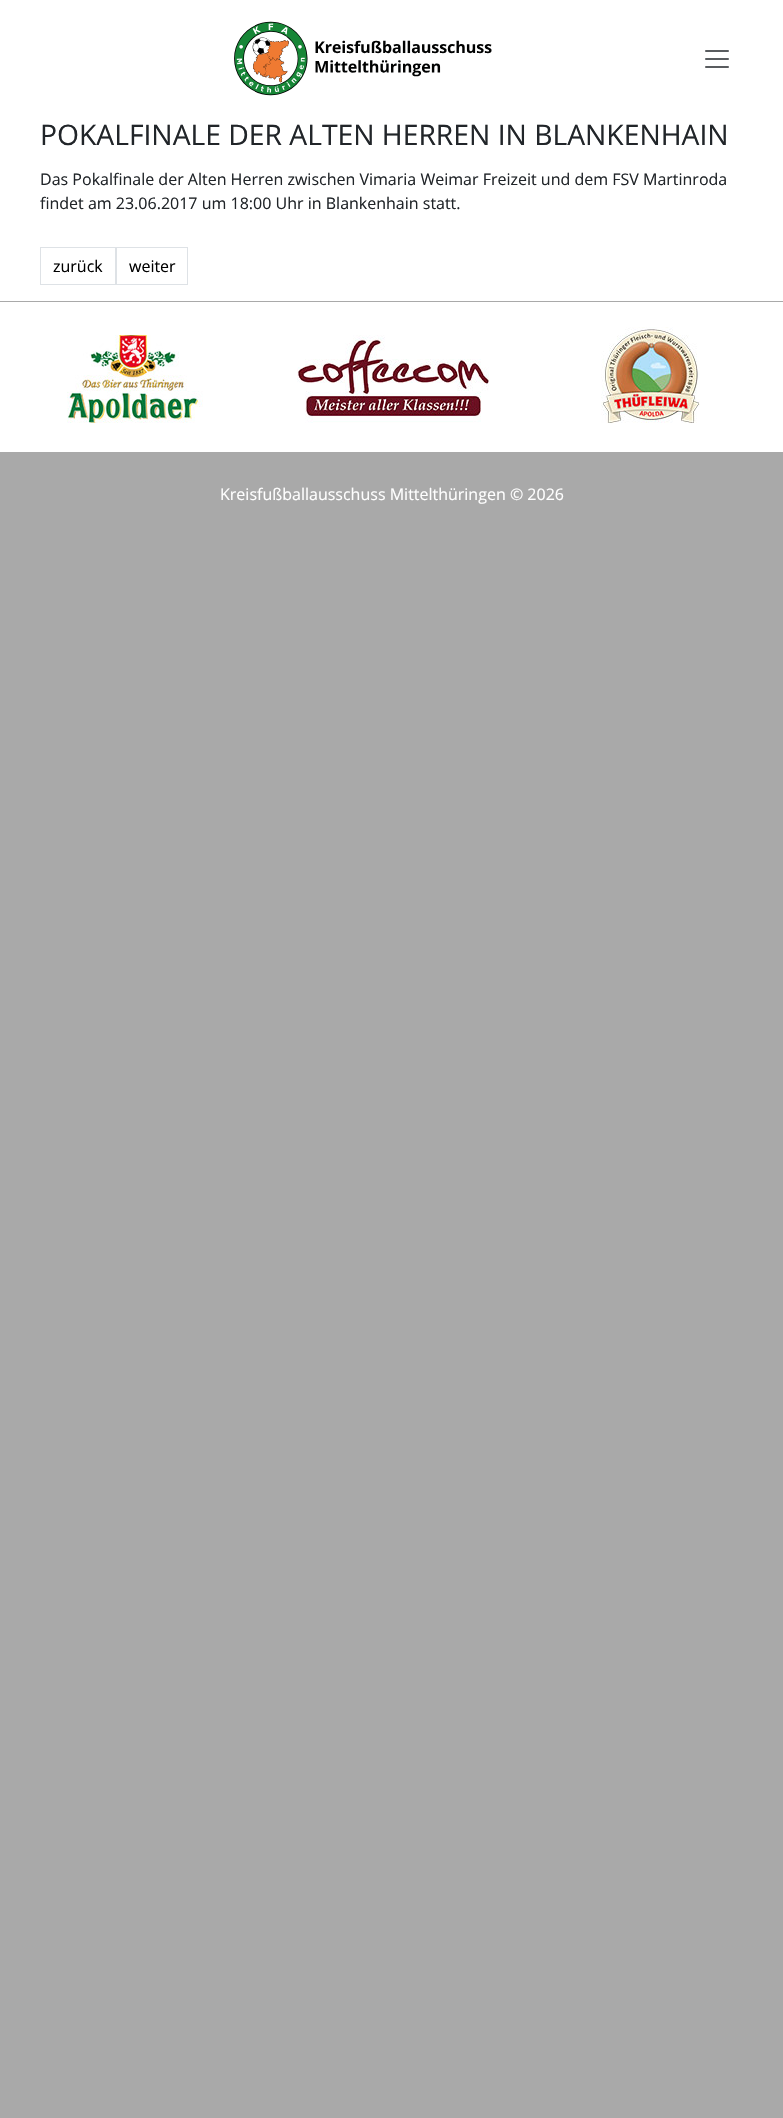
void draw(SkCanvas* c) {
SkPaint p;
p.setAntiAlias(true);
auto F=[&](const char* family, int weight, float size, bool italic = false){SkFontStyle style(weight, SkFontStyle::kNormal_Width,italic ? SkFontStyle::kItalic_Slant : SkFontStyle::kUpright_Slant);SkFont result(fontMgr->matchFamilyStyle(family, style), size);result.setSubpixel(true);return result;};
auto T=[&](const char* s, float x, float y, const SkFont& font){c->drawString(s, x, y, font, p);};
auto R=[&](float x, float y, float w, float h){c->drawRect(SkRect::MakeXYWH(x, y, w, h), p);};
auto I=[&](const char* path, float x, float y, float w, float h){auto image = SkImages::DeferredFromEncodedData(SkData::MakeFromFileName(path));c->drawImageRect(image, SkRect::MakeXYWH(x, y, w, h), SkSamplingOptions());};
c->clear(0xffa9a9a9);
p.setColor(0xffffffff);
R(0,0,783,301);
I("1.png",234,21,258,75);
I("2.png",705,50,24,18);
auto f1 = F("Open Sans",400,28.25);
p.setColor(0xff212529);
T("POKALFINALE DER ALTEN HERREN IN BLANKENHAIN",40,145,f1);
auto f2 = F("Open Sans",400,16);
T("Das Pokalfinale der Alten Herren zwischen Vimaria Weimar Freizeit und dem FSV Martinroda",40,185,f2);
T("findet am 23.06.2017 um 18:00 Uhr in Blankenhain statt.",40,209,f2);
p.setStroke(true);
p.setStrokeWidth(1);
p.setColor(0xffdee2e6);
c->drawRect(SkRect::MakeXYWH(40.5,247.5,75,37),p);
p.setStroke(false);
p.setColor(0xff000000);
T("zurück",53,272,f2);
p.setStroke(true);
p.setColor(0xffdee2e6);
c->drawRect(SkRect::MakeXYWH(116.5,247.5,71,37),p);
p.setStroke(false);
p.setColor(0xff000000);
T("weiter",129,272,f2);
p.setColor(0xffffffff);
R(0,302,783,150);
I("3.png",67,335,136,88);
I("4.png",297,335,192,88);
I("5.png",601,327,99,96);
T("Kreisfußballausschuss Mittelthüringen © 2026",220,500,f2);
}
